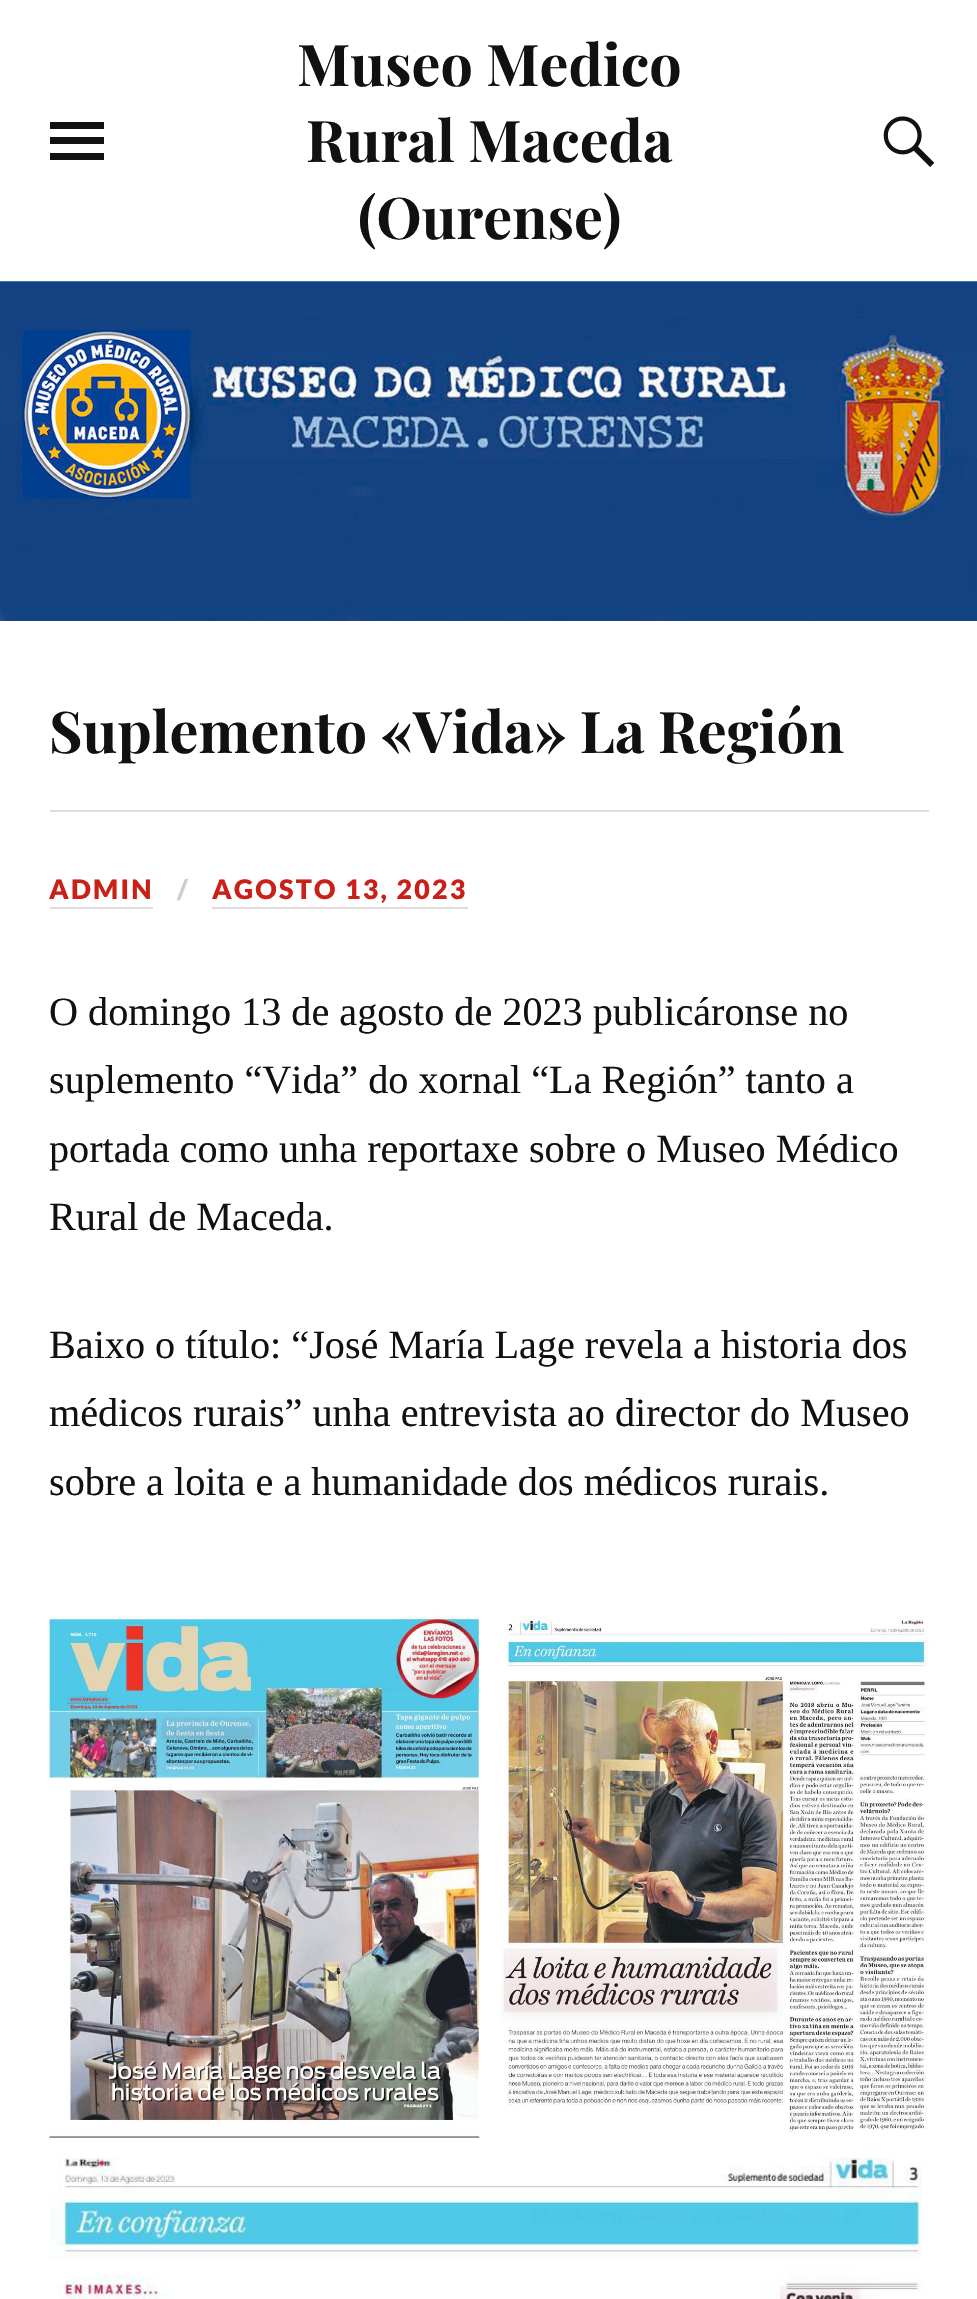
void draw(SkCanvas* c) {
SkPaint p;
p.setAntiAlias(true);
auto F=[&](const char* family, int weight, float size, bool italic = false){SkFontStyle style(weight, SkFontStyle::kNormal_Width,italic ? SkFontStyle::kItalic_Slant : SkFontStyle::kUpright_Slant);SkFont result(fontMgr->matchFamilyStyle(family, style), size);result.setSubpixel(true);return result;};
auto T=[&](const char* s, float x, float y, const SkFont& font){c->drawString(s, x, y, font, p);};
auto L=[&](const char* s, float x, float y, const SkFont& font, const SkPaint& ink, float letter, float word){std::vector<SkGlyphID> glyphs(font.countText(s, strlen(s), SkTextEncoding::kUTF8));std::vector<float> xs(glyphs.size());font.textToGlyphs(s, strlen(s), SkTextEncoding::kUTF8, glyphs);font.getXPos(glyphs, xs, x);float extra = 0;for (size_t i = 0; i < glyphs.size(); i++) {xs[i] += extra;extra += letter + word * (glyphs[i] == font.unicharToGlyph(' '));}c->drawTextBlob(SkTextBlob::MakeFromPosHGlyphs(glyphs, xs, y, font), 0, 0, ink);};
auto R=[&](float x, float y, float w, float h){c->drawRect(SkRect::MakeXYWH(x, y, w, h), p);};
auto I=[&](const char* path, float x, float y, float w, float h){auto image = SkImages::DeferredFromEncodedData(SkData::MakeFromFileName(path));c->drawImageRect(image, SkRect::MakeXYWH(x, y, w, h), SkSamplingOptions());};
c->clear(0xffffffff);
auto f1 = F("Playfair Display",700,57.4);
p.setColor(0xff111111);
T("Museo Medico",297,86,f1);
T("Rural Maceda",306,162,f1);
T("(Ourense)",358,239,f1);
R(50,122,54,7);
R(50,137,54,7);
R(50,153,54,7);
I("1.png",883,116,52,51);
I("2.png",0,281,977,340);
T("Suplemento «Vida» La Región",49,753,f1);
p.setColor(0xffdddddd);
R(50,810,879,2);
auto f2 = F("Lato",900,26.75);
p.setColor(0xffca2017);
L("ADMIN",49,899,f2,p,2.25,0);
p.setColor(0xffdddddd);
R(50,907,103,2);
p.setColor(0xffcccccc);
L("/",177,899,f2,p,2.25,0);
p.setColor(0xffca2017);
L("AGOSTO 13, 2023",212,899,f2,p,2.25,0);
p.setColor(0xffdddddd);
R(212,907,256,2);
auto f3 = F("Liberation Serif",400,40.2);
p.setColor(0xff111111);
T("O domingo 13 de agosto de 2023 publicáronse no",49,1025,f3);
T("suplemento “Vida” do xornal “La Región” tanto a",49,1093,f3);
T("portada como unha reportaxe sobre o Museo Médico",49,1162,f3);
T("Rural de Maceda.",49,1230,f3);
T("Baixo o título: “José María Lage revela a historia dos",49,1358,f3);
T("médicos rurais” unha entrevista ao director do Museo",49,1426,f3);
T("sobre a loita e a humanidade dos médicos rurais.",49,1495,f3);
I("3.png",49,1615,431,523);
I("4.png",500,1615,429,518);
I("5.png",49,2157,873,142);
}
